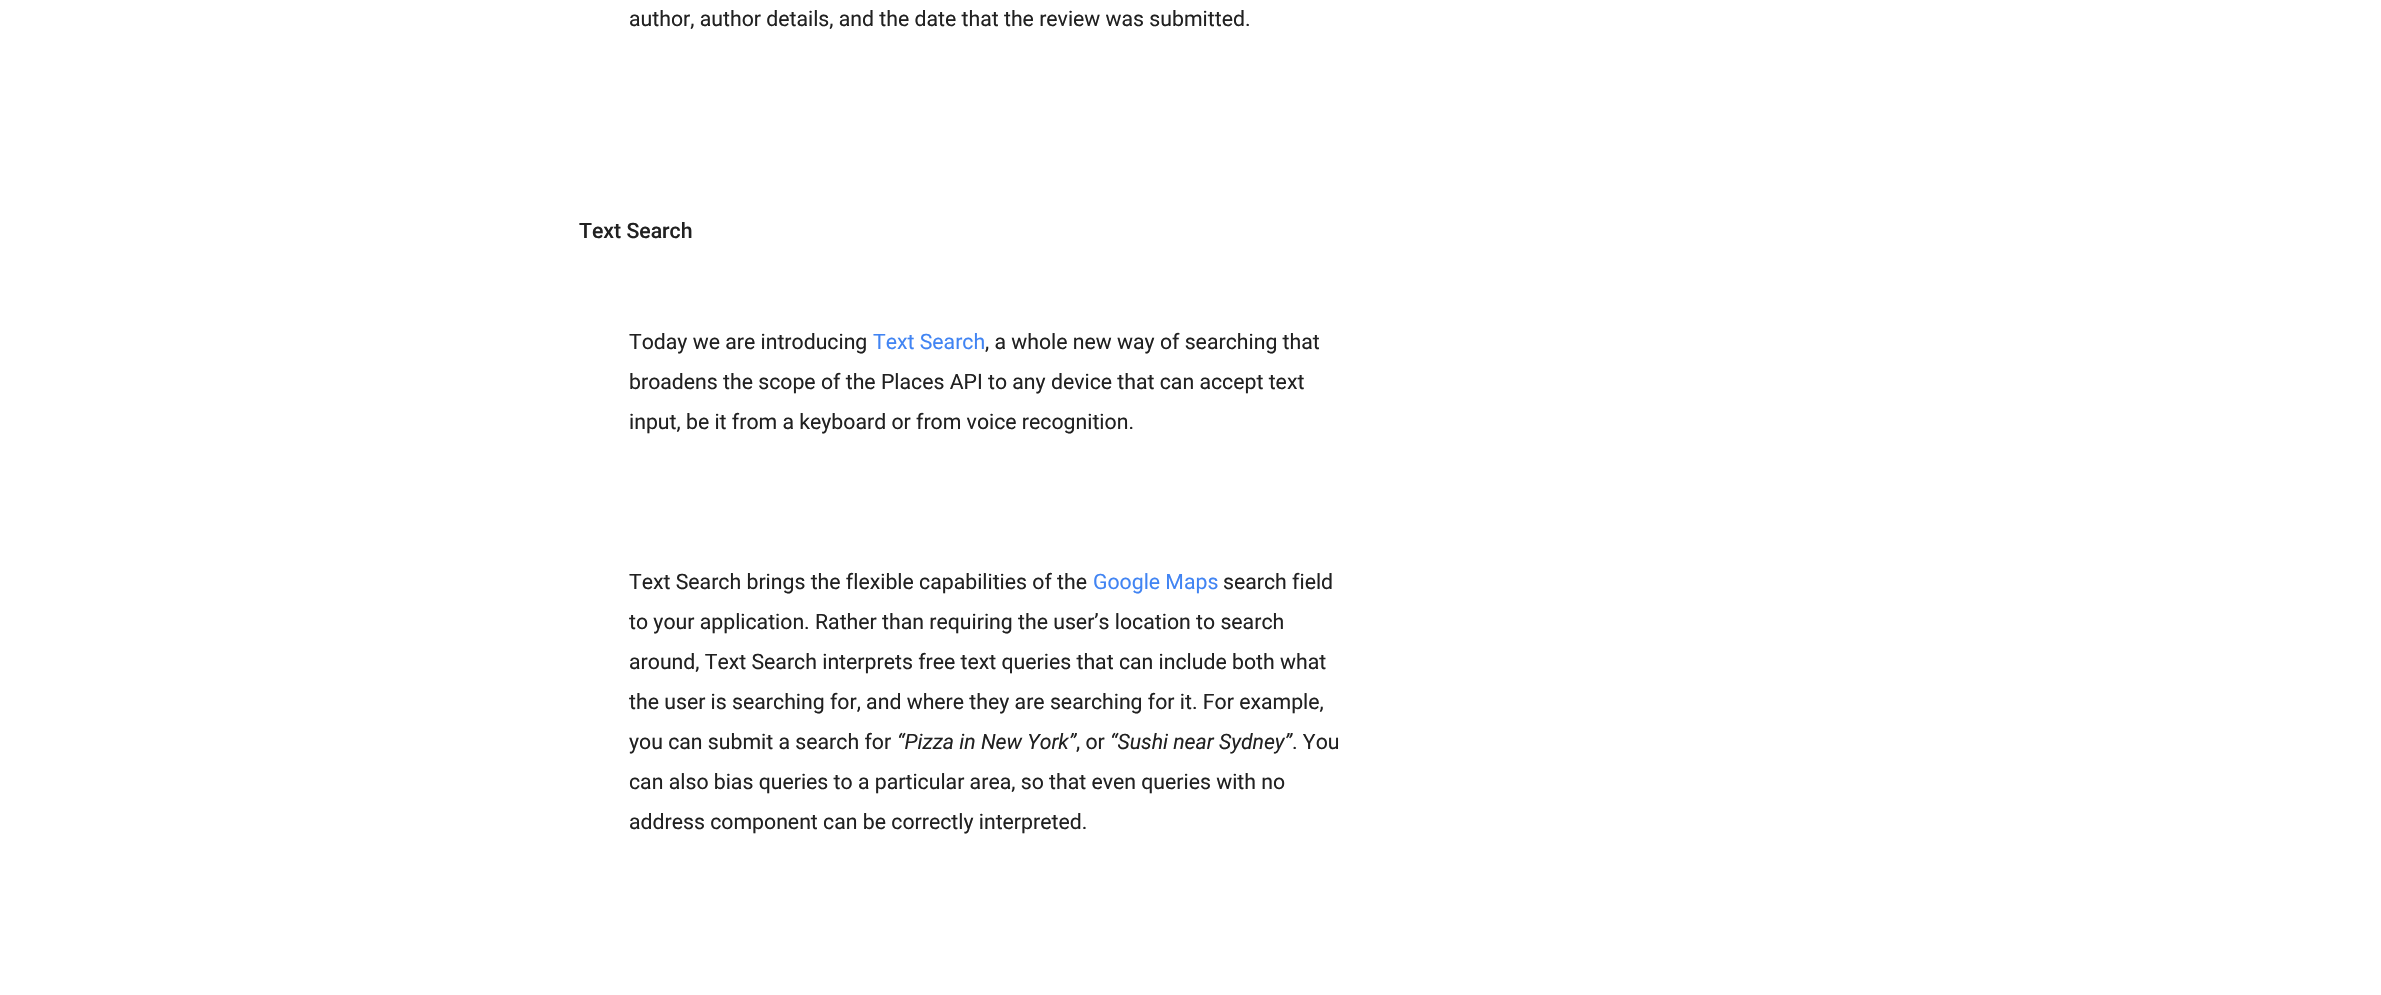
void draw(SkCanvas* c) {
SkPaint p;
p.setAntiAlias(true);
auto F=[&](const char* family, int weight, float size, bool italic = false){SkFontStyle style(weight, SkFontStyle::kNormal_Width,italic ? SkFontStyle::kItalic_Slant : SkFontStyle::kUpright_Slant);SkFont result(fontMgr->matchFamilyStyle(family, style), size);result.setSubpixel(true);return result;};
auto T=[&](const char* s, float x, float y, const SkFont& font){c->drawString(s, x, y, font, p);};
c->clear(0xffffffff);
auto f1 = F("Roboto",400,21.25);
p.setColor(0xff212121);
T("author, author details, and the date that the review was submitted.",629,26,f1);
auto f2 = F("Roboto",500,21.25);
T("Text Search",579,238,f2);
T("Today we are introducing",629,349,f1);
p.setColor(0xff4184f3);
T("Text Search",873,349,f1);
p.setColor(0xff212121);
T(", a whole new way of searching that",985,349,f1);
T("broadens the scope of the Places API to any device that can accept text",629,389,f1);
T("input, be it from a keyboard or from voice recognition.",629,429,f1);
T("Text Search brings the flexible capabilities of the",629,589,f1);
p.setColor(0xff4184f3);
T("Google Maps",1093,589,f1);
p.setColor(0xff212121);
T("search field",1223,589,f1);
T("to your application. Rather than requiring the user’s location to search",629,629,f1);
T("around, Text Search interprets free text queries that can include both what",629,669,f1);
T("the user is searching for, and where they are searching for it. For example,",629,709,f1);
T("you can submit a search for",629,749,f1);
auto f3 = F("Roboto",400,21.25,true);
T("“Pizza in New York”",897,749,f3);
T(", or",1076,749,f1);
T("“Sushi near Sydney”",1110,749,f3);
T(". You",1292,749,f1);
T("can also bias queries to a particular area, so that even queries with no",629,789,f1);
T("address component can be correctly interpreted.",629,829,f1);
}
